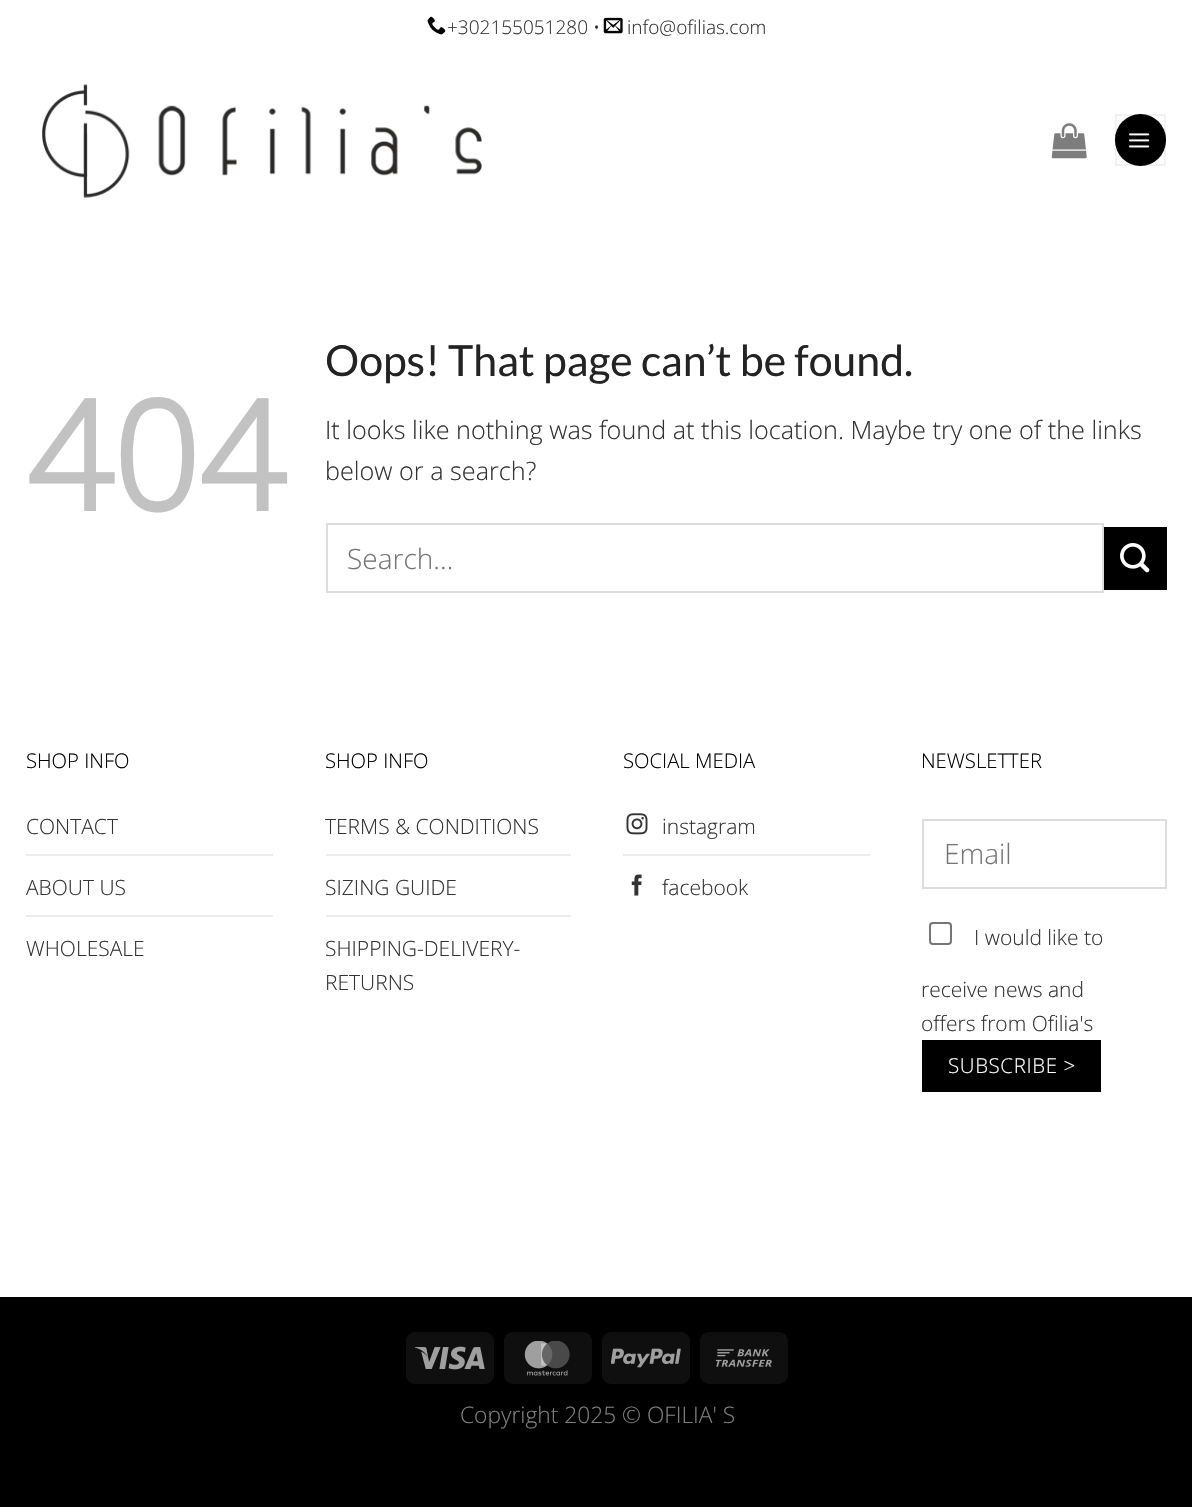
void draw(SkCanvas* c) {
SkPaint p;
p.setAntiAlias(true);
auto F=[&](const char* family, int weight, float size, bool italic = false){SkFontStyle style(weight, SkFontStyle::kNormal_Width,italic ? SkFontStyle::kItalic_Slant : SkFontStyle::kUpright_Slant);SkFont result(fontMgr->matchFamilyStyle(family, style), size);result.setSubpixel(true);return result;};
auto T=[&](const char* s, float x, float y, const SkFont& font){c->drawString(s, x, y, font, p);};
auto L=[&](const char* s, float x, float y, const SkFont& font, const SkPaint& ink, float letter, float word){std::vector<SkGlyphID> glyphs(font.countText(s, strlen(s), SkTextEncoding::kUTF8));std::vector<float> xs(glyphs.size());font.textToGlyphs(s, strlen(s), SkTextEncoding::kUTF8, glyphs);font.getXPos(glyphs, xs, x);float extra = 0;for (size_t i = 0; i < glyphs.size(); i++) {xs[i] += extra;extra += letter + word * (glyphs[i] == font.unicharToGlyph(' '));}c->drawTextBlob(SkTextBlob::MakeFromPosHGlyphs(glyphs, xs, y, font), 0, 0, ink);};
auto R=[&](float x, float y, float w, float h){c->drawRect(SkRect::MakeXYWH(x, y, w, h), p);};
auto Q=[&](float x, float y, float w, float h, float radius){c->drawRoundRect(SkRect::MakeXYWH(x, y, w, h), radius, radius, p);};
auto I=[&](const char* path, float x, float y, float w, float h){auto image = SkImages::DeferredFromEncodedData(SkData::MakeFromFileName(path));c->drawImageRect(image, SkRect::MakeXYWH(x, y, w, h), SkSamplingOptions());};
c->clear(0xff000000);
p.setColor(0xffffffff);
R(0,0,1192,1297);
I("1.png",427,16,19,19);
auto f1 = F("Open Sans",300,19);
p.setColor(0xff333333);
T("+302155051280 •",447,34,f1);
I("2.png",603,17,20,17);
T("info@ofilias.com",627,34,f1);
I("3.png",42,84,440,114);
I("4.png",1051,123,36,36);
p.setColor(0xff000000);
Q(1115,114,51,52,25.5);
p.setStroke(true);
p.setStrokeWidth(2);
p.setColor(0x0d000000);
c->drawRect(SkRect::MakeXYWH(1116,115,49,50),p);
I("5.png",1129,133,21,15);
auto f2 = F("Open Sans",700,151);
p.setStroke(false);
p.setColor(0xffc2c2c2);
T("404",26,511,f2);
auto f3 = F("Lato",400,42.8);
p.setColor(0xff232323);
T("Oops! That page can’t be found.",325,376,f3);
auto f4 = F("Open Sans",300,25.2);
p.setColor(0xff333333);
T("It looks like nothing was found at this location. Maybe try one of the links",325,439,f4);
T("below or a search?",325,480,f4);
p.setStroke(true);
p.setColor(0xffdddddd);
c->drawRect(SkRect::MakeXYWH(327,524,776,68),p);
auto f5 = F("Open Sans",300,28);
p.setStroke(false);
p.setColor(0xff757575);
T("Search…",347,569,f5);
p.setColor(0xff000000);
R(1104,527,63,63);
I("6.png",1120,543,30,30);
auto f6 = F("Open Sans",300,20.25);
T("SHOP INFO",26,768,f6);
p.setColor(0xffececec);
R(26,854,247,2);
auto f7 = F("Open Sans",300,21);
p.setColor(0xff333333);
T("CONTACT",26,834,f7);
p.setColor(0xffececec);
R(26,915,247,2);
p.setColor(0xff333333);
T("ABOUT US",26,895,f7);
T("WHOLESALE",26,956,f7);
p.setColor(0xff000000);
T("SHOP INFO",325,768,f6);
p.setColor(0xffececec);
R(326,854,245,2);
p.setColor(0xff333333);
T("TERMS & CONDITIONS",325,834,f7);
p.setColor(0xffececec);
R(326,915,245,2);
p.setColor(0xff333333);
T("SIZING GUIDE",325,895,f7);
T("SHIPPING-DELIVERY-",325,956,f7);
T("RETURNS",325,990,f7);
p.setColor(0xff000000);
T("SOCIAL MEDIA",623,768,f6);
p.setColor(0xffececec);
R(623,854,247,2);
I("7.png",626,813,22,22);
p.setColor(0xff333333);
T("instagram",662,834,f7);
I("8.png",631,874,11,22);
T("facebook",662,895,f7);
p.setColor(0xff000000);
T("NEWSLETTER",921,768,f6);
p.setStroke(true);
p.setColor(0xffdddddd);
c->drawRect(SkRect::MakeXYWH(923,820,243,68),p);
p.setStroke(false);
p.setColor(0xff757575);
T("Email",944,864,f5);
p.setStroke(true);
p.setColor(0xff767676);
c->drawRoundRect(SkRect::MakeXYWH(930,923,21,21),3,3,p);
p.setStroke(false);
p.setColor(0xff333333);
T("I would like to",974,945,f7);
T("receive news and",921,997,f7);
T("offers from Ofilia's",921,1031,f7);
p.setColor(0xff000000);
R(922,1040,179,52);
auto f8 = F("Open Sans",300,20.5);
p.setColor(0xffffffff);
L("SUBSCRIBE >",948,1073,f8,p,.6,0);
p.setColor(0xff0f0f0f);
Q(406,1332,88,52,9);
I("9.png",415,1346,70,24);
Q(504,1332,88,52,9);
I("10.png",524,1341,46,35);
Q(602,1332,88,52,9);
I("11.png",611,1348,70,20);
Q(700,1332,88,52,9);
I("12.png",715,1349,57,18);
auto f9 = F("Open Sans",300,22.75);
p.setColor(0xff808080);
T("Copyright 2025 © OFILIA' S",460,1423,f9);
}
